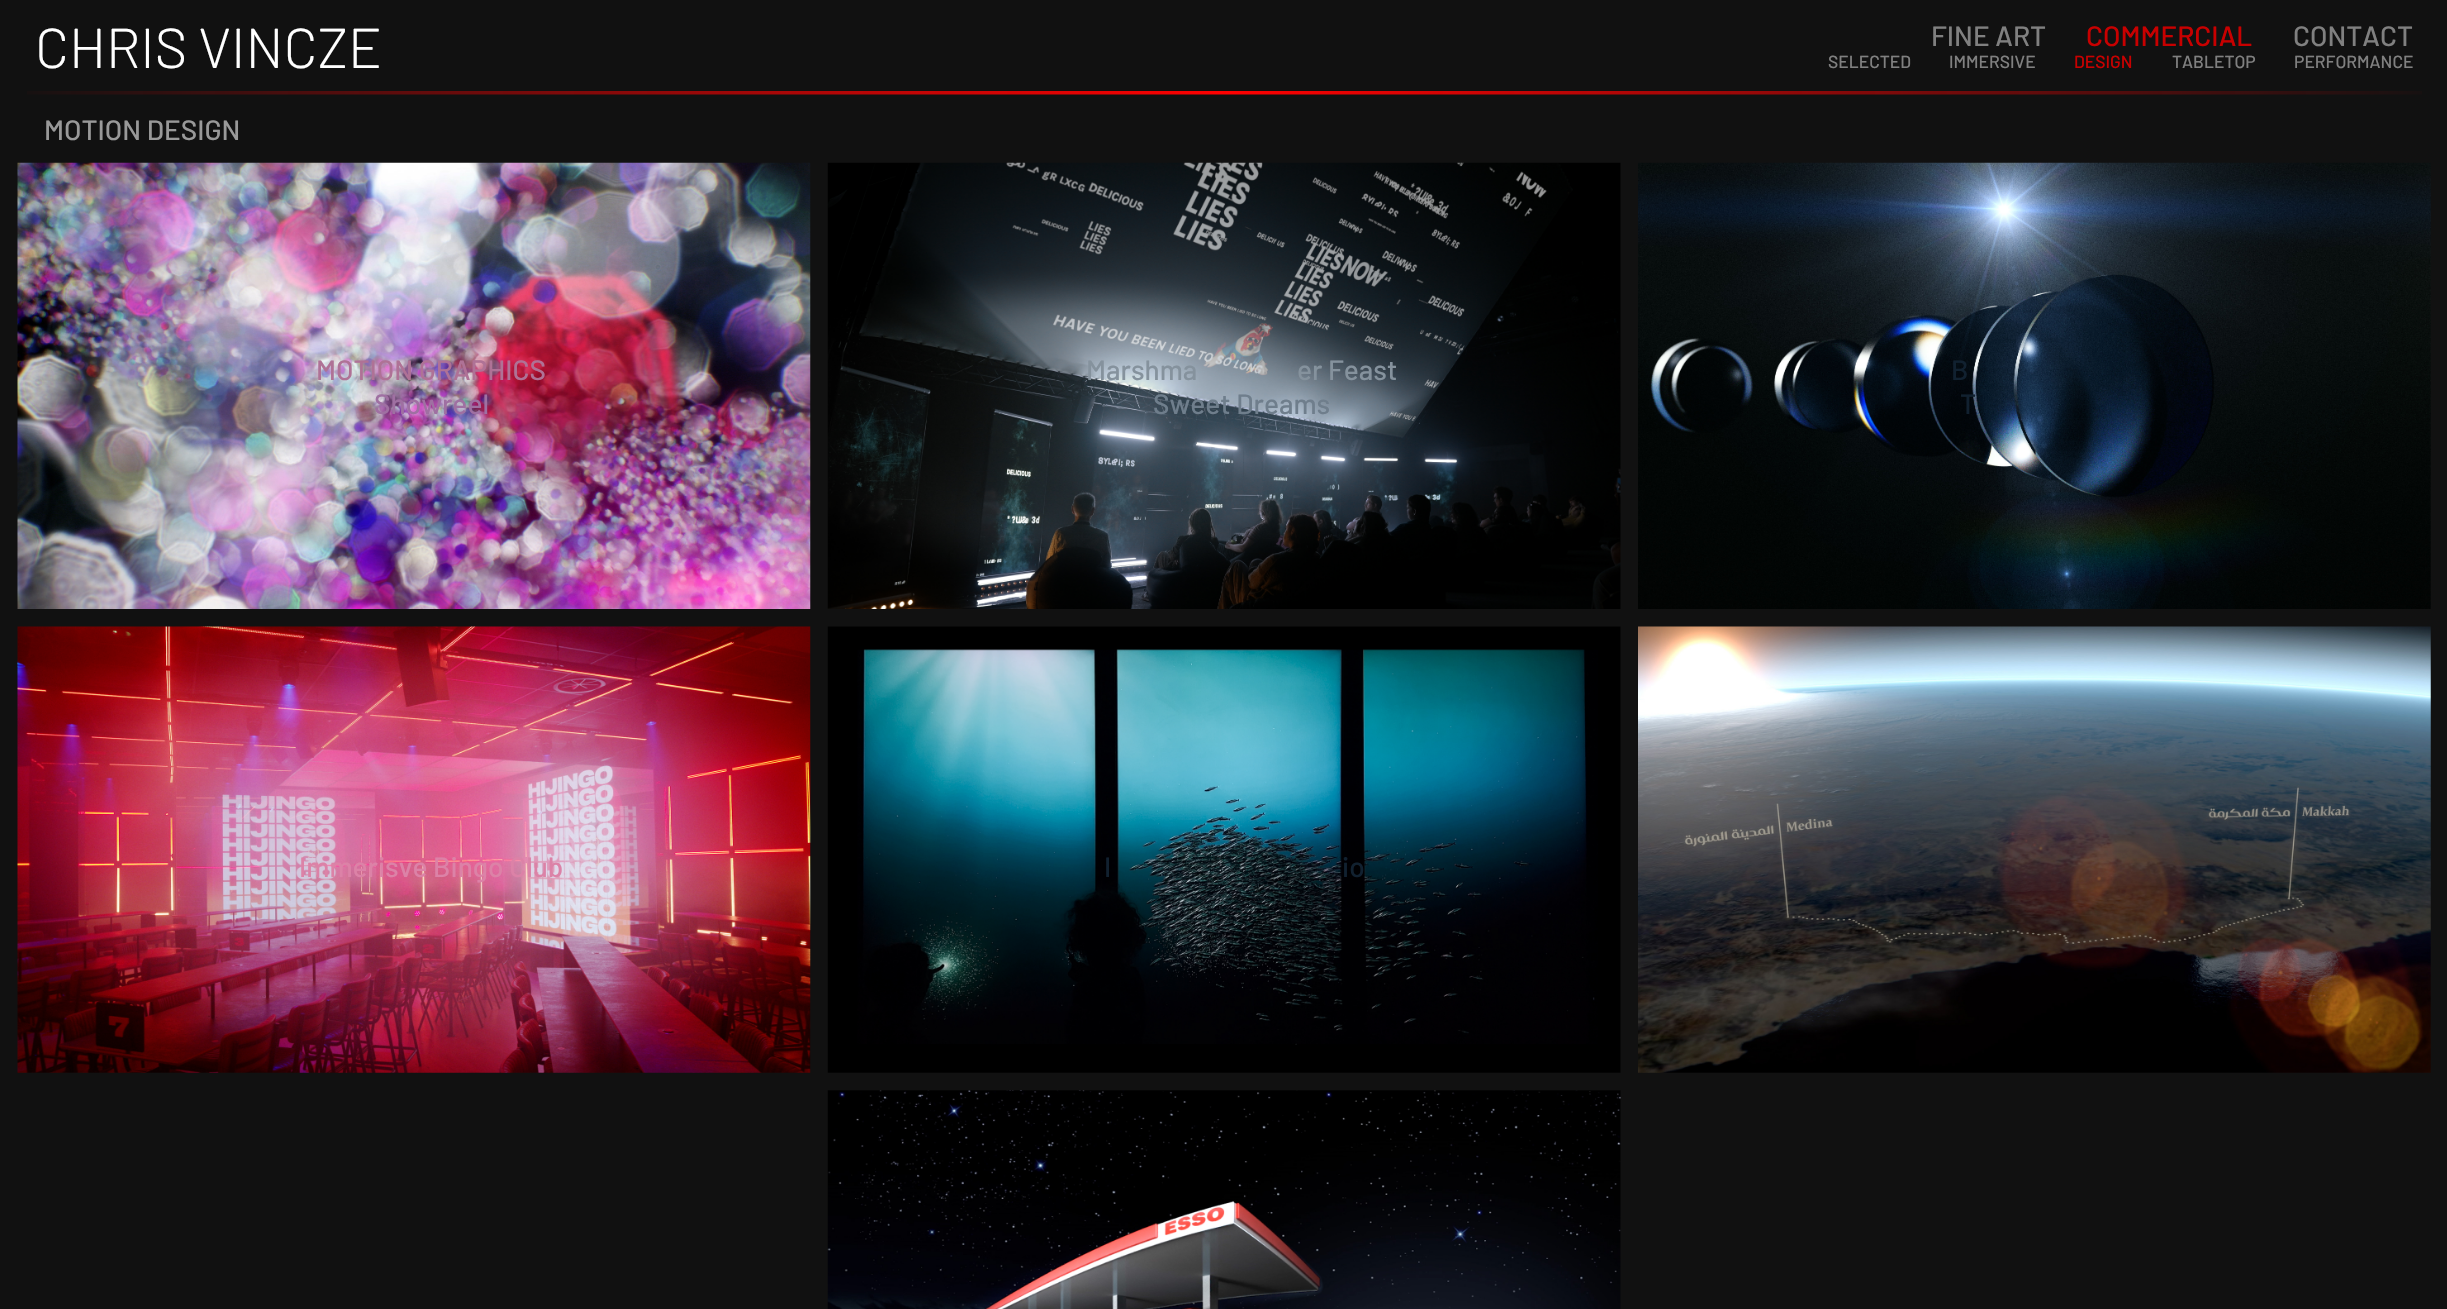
void draw(SkCanvas* c) {
SkPaint p;
p.setAntiAlias(true);
auto F=[&](const char* family, int weight, float size, bool italic = false){SkFontStyle style(weight, SkFontStyle::kNormal_Width,italic ? SkFontStyle::kItalic_Slant : SkFontStyle::kUpright_Slant);SkFont result(fontMgr->matchFamilyStyle(family, style), size);result.setSubpixel(true);return result;};
auto T=[&](const char* s, float x, float y, const SkFont& font){c->drawString(s, x, y, font, p);};
auto I=[&](const char* path, float x, float y, float w, float h){auto image = SkImages::DeferredFromEncodedData(SkData::MakeFromFileName(path));c->drawImageRect(image, SkRect::MakeXYWH(x, y, w, h), SkSamplingOptions());};
c->clear(0xff111111);
auto f1 = F("Barlow",300,56);
p.setColor(0xffffffff);
T("CHRIS VINCZE",35,68,f1);
auto f2 = F("Barlow",500,28);
p.setColor(0xff808080);
T("FINE ART",1931,46,f2);
p.setColor(0xffc80000);
T("COMMERCIAL",2086,46,f2);
p.setColor(0xff808080);
T("CONTACT",2293,46,f2);
auto f3 = F("Barlow",500,17.5);
T("SELECTED",1828,68,f3);
T("IMMERSIVE",1949,68,f3);
p.setColor(0xffc80000);
T("DESIGN",2074,68,f3);
p.setColor(0xff808080);
T("TABLETOP",2172,68,f3);
T("PERFORMANCE",2294,68,f3);
I("1.png",27,91,2395,4);
p.setColor(0xff999999);
T("MOTION DESIGN",44,140,f2);
I("2.png",17,162,794,447);
p.setColor(0xffaf7296);
T("MOTION GRAPHICS",316,380,f2);
p.setColor(0xff9f70a2);
T("Showreel",374,414,f2);
I("3.png",827,162,794,447);
p.setColor(0xff85929d);
T("Marshma",1086,380,f2);
T("er Feast",1297,380,f2);
p.setColor(0xff6f7e8c);
T("Sweet Dreams",1153,414,f2);
I("4.png",1638,162,793,447);
p.setColor(0xff112130);
T("B",1951,380,f2);
T("T",1960,414,f2);
I("5.png",17,626,794,447);
p.setColor(0xffdc82a7);
T("Immerisve Bingo Club",299,877,f2);
I("6.png",827,626,794,447);
p.setColor(0xff112130);
T("I",1104,877,f2);
T("io",1342,877,f2);
I("7.png",1638,626,793,447);
I("8.png",827,1090,794,219);
}
